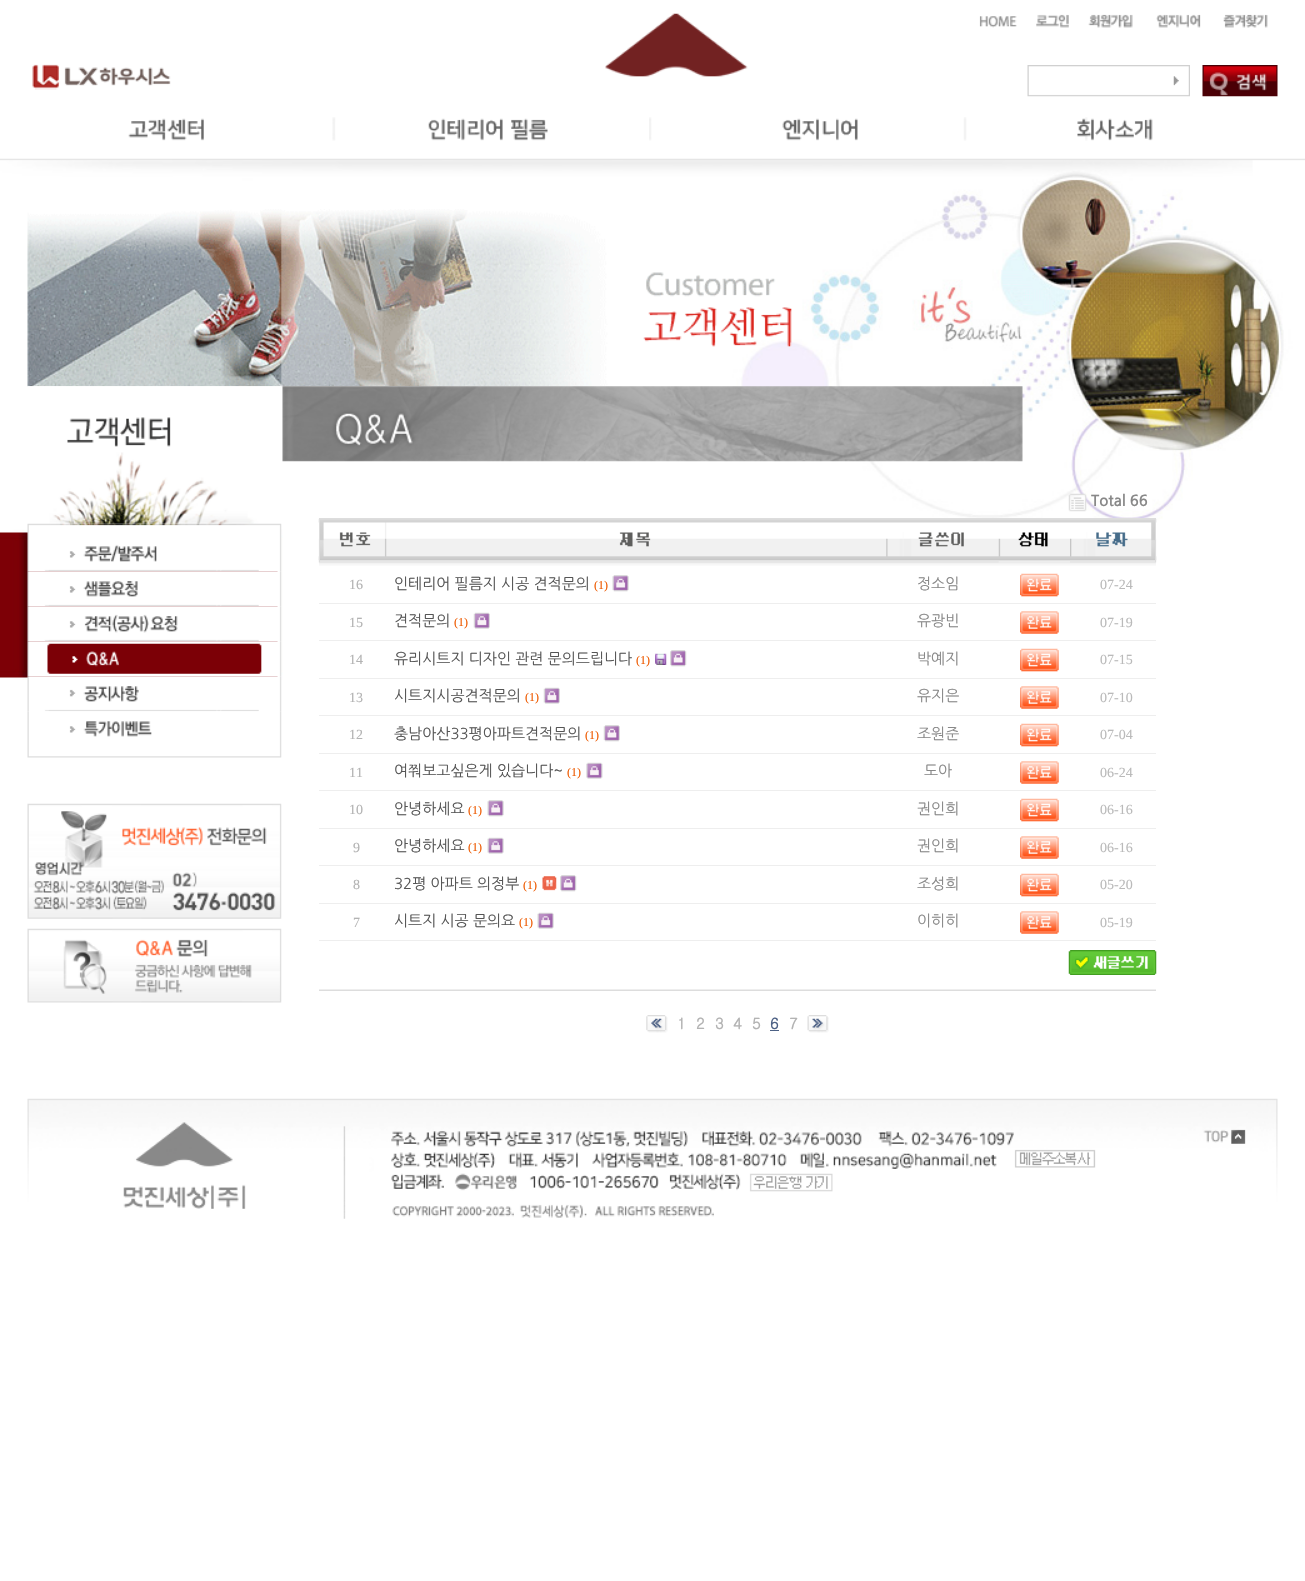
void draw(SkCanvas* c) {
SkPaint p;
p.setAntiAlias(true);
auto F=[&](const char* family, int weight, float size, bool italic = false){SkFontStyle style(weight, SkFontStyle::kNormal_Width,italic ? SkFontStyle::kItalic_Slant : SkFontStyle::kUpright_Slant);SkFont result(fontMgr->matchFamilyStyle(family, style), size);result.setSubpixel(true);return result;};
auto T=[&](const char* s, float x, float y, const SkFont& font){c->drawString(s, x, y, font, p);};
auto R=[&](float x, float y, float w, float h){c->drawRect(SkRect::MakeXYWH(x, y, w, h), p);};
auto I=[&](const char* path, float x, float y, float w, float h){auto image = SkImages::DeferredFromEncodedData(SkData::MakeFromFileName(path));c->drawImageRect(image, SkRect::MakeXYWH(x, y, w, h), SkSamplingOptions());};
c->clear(0xffffffff);
I("1.png",0,158,1305,522);
I("2.png",32,64,139,26);
I("3.png",605,13,143,64);
I("4.png",979,16,38,12);
I("5.png",1036,14,33,14);
I("6.png",1088,14,45,14);
I("7.png",1156,14,45,14);
I("8.png",1223,14,45,14);
I("9.png",1027,65,163,32);
I("10.png",1202,65,76,32);
I("11.png",128,118,76,23);
I("12.png",332,117,216,24);
I("13.png",649,117,318,24);
I("14.png",1077,117,76,24);
I("15.png",27,209,765,178);
I("16.png",27,386,254,138);
I("17.png",27,523,255,49);
I("18.png",27,571,255,36);
I("19.png",27,606,255,36);
I("20.png",27,641,255,36);
I("21.png",27,676,255,36);
I("22.png",27,711,255,47);
I("23.png",27,803,255,116);
I("24.png",27,928,255,75);
I("25.png",282,386,741,76);
I("26.png",1068,493,19,19);
auto f1 = F("NanumGothic",700,15);
p.setColor(0xff888888);
T("Total 66",1091,506,f1);
I("27.png",318,518,839,45);
p.setStroke(true);
p.setStrokeWidth(1);
p.setColor(0xffdddddd);
c->drawRect(SkRect::MakeXYWH(319.5,518.5,836,44),p);
I("28.png",320,522,4,35);
I("29.png",323,522,64,35);
I("30.png",619,532,32,15);
I("31.png",886,532,78,25);
I("35.png",319,562,837,4);
I("32.png",998,532,72,31);
I("33.png",1070,532,58,25);
I("34.png",1151,522,4,35);
auto f2 = F("Liberation Serif",400,14);
p.setStroke(false);
p.setColor(0xffb3b3b3);
T("16",349,589,f2);
auto f3 = F("NanumGothic",400,15);
p.setColor(0xff555555);
T("인테리어 필름지 시공 견적문의",394,589,f3);
auto f4 = F("Liberation Serif",400,12);
p.setColor(0xffee5a00);
T("(1)",594,589,f4);
I("36.png",612,575,17,17);
p.setColor(0xff888888);
T("정소임",917,589,f3);
I("37.png",1020,573,39,24);
p.setColor(0xffbababa);
T("07-24",1100,589,f2);
p.setColor(0xffeeeeee);
R(319,603,837,1);
p.setColor(0xffb3b3b3);
T("15",349,627,f2);
p.setColor(0xff555555);
T("견적문의",394,626,f3);
p.setColor(0xffee5a00);
T("(1)",454,626,f4);
I("38.png",473,612,17,17);
p.setColor(0xff888888);
T("유광빈",917,626,f3);
I("39.png",1020,611,39,23);
p.setColor(0xffbababa);
T("07-19",1100,627,f2);
p.setColor(0xffeeeeee);
R(319,640,837,1);
p.setColor(0xffb3b3b3);
T("14",349,664,f2);
p.setColor(0xff555555);
T("유리시트지 디자인 관련 문의드립니다",394,664,f3);
p.setColor(0xffee5a00);
T("(1)",636,664,f4);
I("40.png",655,653,12,12);
I("41.png",670,650,17,17);
p.setColor(0xff888888);
T("박예지",917,664,f3);
I("42.png",1020,648,39,24);
p.setColor(0xffbababa);
T("07-15",1100,664,f2);
p.setColor(0xffeeeeee);
R(319,678,837,1);
p.setColor(0xffb3b3b3);
T("13",349,702,f2);
p.setColor(0xff555555);
T("시트지시공견적문의",394,701,f3);
p.setColor(0xffee5a00);
T("(1)",525,701,f4);
I("38.png",543,687,17,17);
p.setColor(0xff888888);
T("유지은",917,701,f3);
I("39.png",1020,686,39,23);
p.setColor(0xffbababa);
T("07-10",1100,702,f2);
p.setColor(0xffeeeeee);
R(319,715,837,1);
p.setColor(0xffb3b3b3);
T("12",349,739,f2);
p.setColor(0xff555555);
T("충남아산33평아파트견적문의",394,739,f3);
p.setColor(0xffee5a00);
T("(1)",585,739,f4);
I("43.png",603,725,17,17);
p.setColor(0xff888888);
T("조원준",917,739,f3);
I("42.png",1020,723,39,24);
p.setColor(0xffbababa);
T("07-04",1100,739,f2);
p.setColor(0xffeeeeee);
R(319,753,837,1);
p.setColor(0xffb3b3b3);
T("11",349,777,f2);
p.setColor(0xff555555);
T("여쭤보고싶은게 있습니다~",394,776,f3);
p.setColor(0xffee5a00);
T("(1)",567,776,f4);
I("44.png",586,762,17,17);
p.setColor(0xff888888);
T("도아",924,776,f3);
I("39.png",1020,761,39,23);
p.setColor(0xffbababa);
T("06-24",1100,777,f2);
p.setColor(0xffeeeeee);
R(319,790,837,1);
p.setColor(0xffb3b3b3);
T("10",349,814,f2);
p.setColor(0xff555555);
T("안녕하세요",394,814,f3);
p.setColor(0xffee5a00);
T("(1)",468,814,f4);
I("36.png",487,800,17,17);
p.setColor(0xff888888);
T("권인희",917,814,f3);
I("42.png",1020,798,39,24);
p.setColor(0xffbababa);
T("06-16",1100,814,f2);
p.setColor(0xffeeeeee);
R(319,828,837,1);
p.setColor(0xffb3b3b3);
T("9",353,852,f2);
p.setColor(0xff555555);
T("안녕하세요",394,851,f3);
p.setColor(0xffee5a00);
T("(1)",468,851,f4);
I("45.png",487,837,17,17);
p.setColor(0xff888888);
T("권인희",917,851,f3);
I("39.png",1020,836,39,23);
p.setColor(0xffbababa);
T("06-16",1100,852,f2);
p.setColor(0xffeeeeee);
R(319,865,837,1);
p.setColor(0xffb3b3b3);
T("8",353,889,f2);
p.setColor(0xff555555);
T("32평 아파트 의정부",394,889,f3);
p.setColor(0xffee5a00);
T("(1)",523,889,f4);
I("46.png",542,876,15,15);
I("41.png",560,875,17,17);
p.setColor(0xff888888);
T("조성희",917,889,f3);
I("42.png",1020,873,39,24);
p.setColor(0xffbababa);
T("05-20",1100,889,f2);
p.setColor(0xffeeeeee);
R(319,903,837,1);
p.setColor(0xffb3b3b3);
T("7",353,927,f2);
p.setColor(0xff555555);
T("시트지 시공 문의요",394,926,f3);
p.setColor(0xffee5a00);
T("(1)",519,926,f4);
I("47.png",537,912,17,17);
p.setColor(0xff888888);
T("이히히",917,926,f3);
I("39.png",1020,911,39,23);
p.setColor(0xffbababa);
T("05-19",1100,927,f2);
p.setColor(0xffeeeeee);
R(319,940,837,1);
I("48.png",1068,950,89,25);
R(319,989,837,1);
p.setColor(0xffdddddd);
R(319,990,837,1);
I("49.png",646,1015,22,18);
auto f5 = F("Gulim",700,15);
p.setColor(0xffb3b3b3);
T("1",677,1029,f5);
T("2",696,1029,f5);
T("3",715,1029,f5);
T("4",733,1029,f5);
T("5",752,1029,f5);
p.setColor(0xff4d6185);
T("6",770,1029,f5);
R(770,1030,9,1);
p.setColor(0xffb3b3b3);
T("7",789,1029,f5);
I("50.png",807,1015,22,18);
I("51.png",27,1098,1251,121);
}
